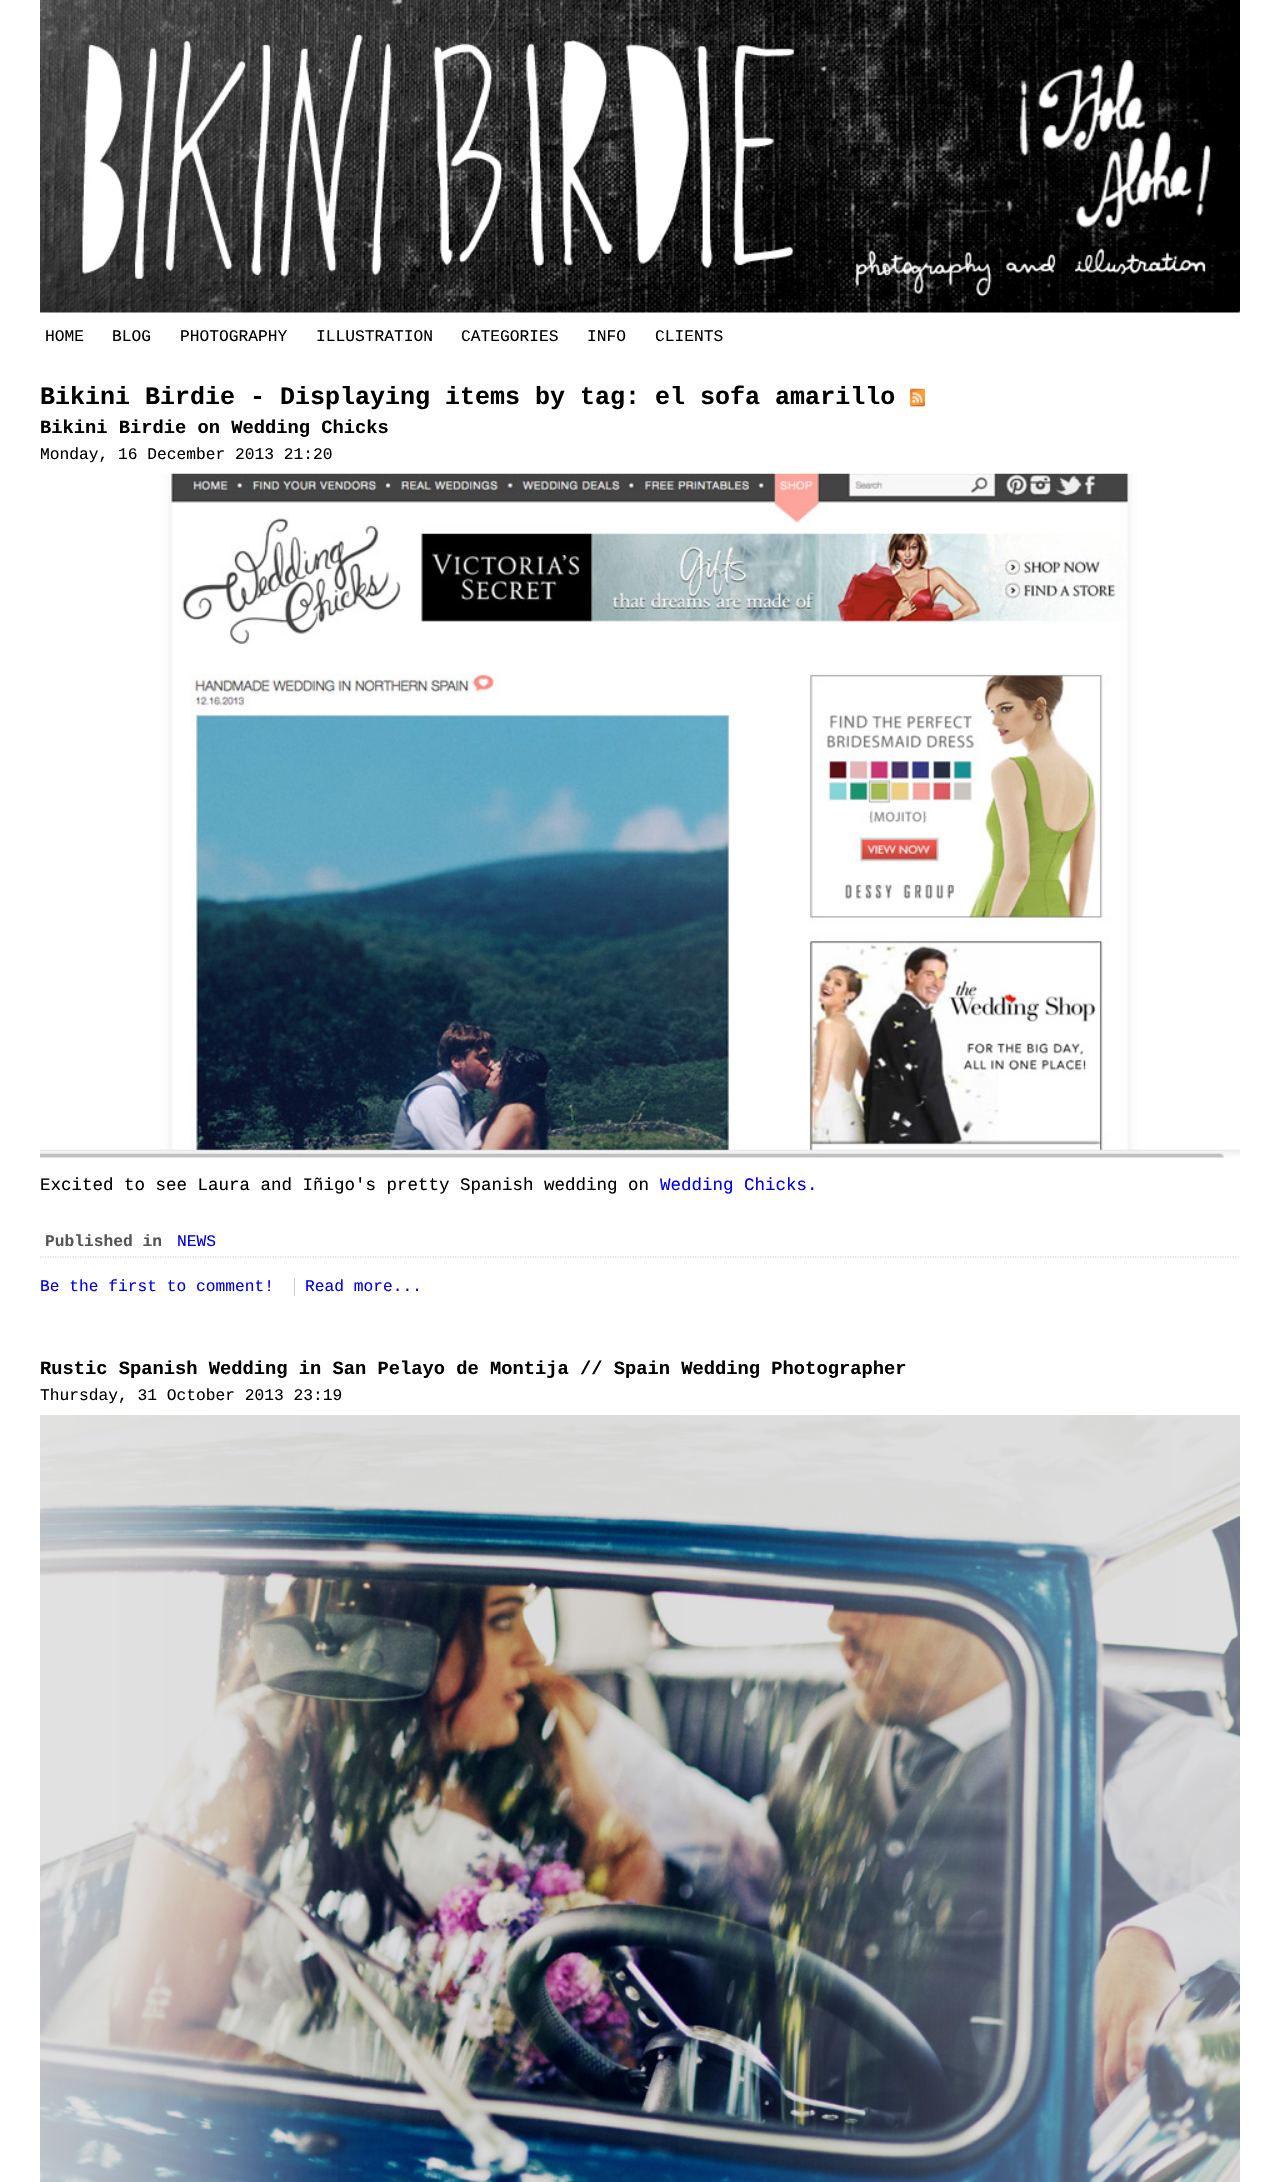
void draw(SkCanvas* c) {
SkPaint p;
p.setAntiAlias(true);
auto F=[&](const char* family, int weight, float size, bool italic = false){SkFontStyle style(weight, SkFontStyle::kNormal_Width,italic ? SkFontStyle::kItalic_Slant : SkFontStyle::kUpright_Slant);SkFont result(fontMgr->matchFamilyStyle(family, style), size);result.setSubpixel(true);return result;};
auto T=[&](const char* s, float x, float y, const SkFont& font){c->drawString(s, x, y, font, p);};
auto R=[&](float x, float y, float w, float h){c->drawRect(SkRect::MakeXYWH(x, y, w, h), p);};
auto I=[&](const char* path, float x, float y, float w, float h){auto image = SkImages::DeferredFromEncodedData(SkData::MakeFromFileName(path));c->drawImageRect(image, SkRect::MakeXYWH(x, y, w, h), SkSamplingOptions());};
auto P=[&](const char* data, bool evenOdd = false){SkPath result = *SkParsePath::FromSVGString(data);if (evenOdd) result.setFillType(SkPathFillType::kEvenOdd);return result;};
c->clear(0xffffffff);
I("1.png",40,0,1200,313);
auto f1 = F("Liberation Mono",400,16.25);
p.setColor(0xff000000);
T("HOME",45,341,f1);
T("BLOG",112,341,f1);
T("PHOTOGRAPHY",180,341,f1);
T("ILLUSTRATION",316,341,f1);
T("CATEGORIES",461,341,f1);
T("INFO",587,341,f1);
T("CLIENTS",655,341,f1);
auto f2 = F("Liberation Mono",700,25);
T("Bikini Birdie - Displaying items by tag: el sofa amarillo",40,404,f2);
I("2.png",910,388,15,19);
auto f3 = F("Liberation Mono",700,18.75);
T("Bikini Birdie on Wedding Chicks",40,433,f3);
T("Monday, 16 December 2013 21:20",40,459,f1);
I("3.png",40,473,1200,685);
auto f4 = F("Liberation Mono",400,17.5);
T("Excited to see Laura and Iñigo's pretty Spanish wedding on",40,1190,f4);
p.setColor(0xff0000ee);
T("Wedding Chicks.",660,1190,f4);
p.setStroke(true);
p.setStrokeWidth(1.2);
p.setColor(0xffcccccc);
p.setPathEffect(SkDashPathEffect::Make({{1.25f,1.25f}}, 0));
c->drawPath(P("M40 1257h1200"),p);
p.setPathEffect(nullptr);
auto f5 = F("Liberation Mono",700,16.25);
p.setStroke(false);
p.setColor(0xff555555);
T("Published in",45,1246,f5);
p.setColor(0xff0000ee);
T("NEWS",177,1246,f1);
T("Be the first to comment!",40,1291,f1);
p.setColor(0xffcccccc);
R(294,1278,1,18);
p.setColor(0xff0000ee);
T("Read more...",305,1291,f1);
p.setColor(0xff000000);
T("Rustic Spanish Wedding in San Pelayo de Montija // Spain Wedding Photographer",40,1374,f3);
T("Thursday, 31 October 2013 23:19",40,1400,f1);
I("4.png",40,1415,1200,767);
}
